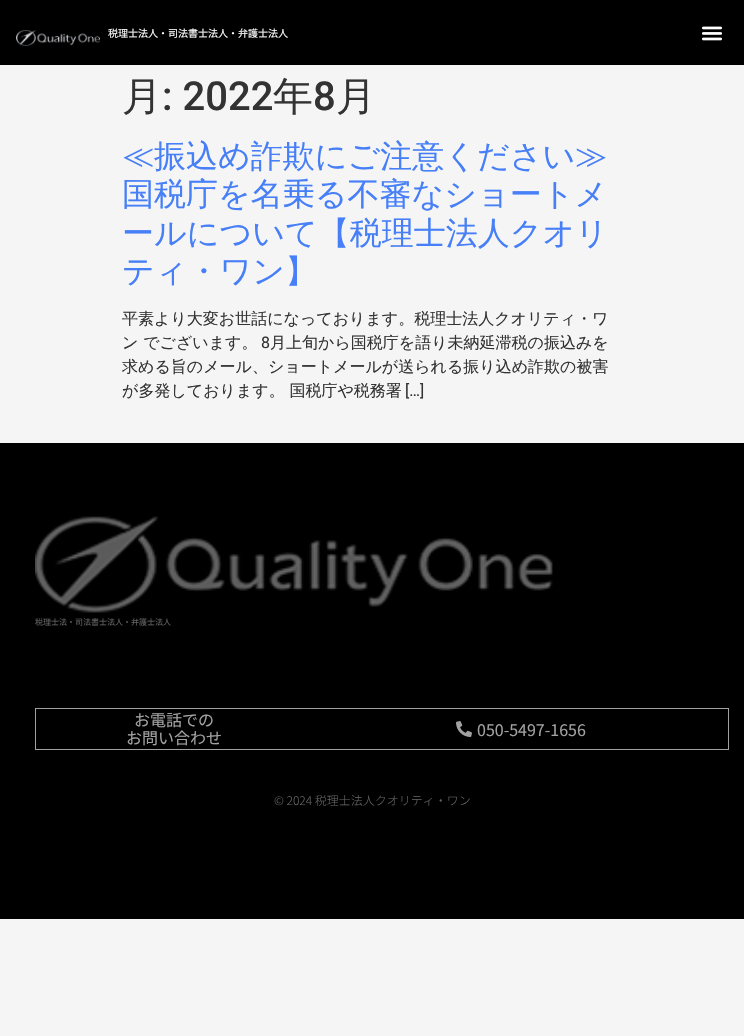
void draw(SkCanvas* c) {
SkPaint p;
p.setAntiAlias(true);
auto F=[&](const char* family, int weight, float size, bool italic = false){SkFontStyle style(weight, SkFontStyle::kNormal_Width,italic ? SkFontStyle::kItalic_Slant : SkFontStyle::kUpright_Slant);SkFont result(fontMgr->matchFamilyStyle(family, style), size);result.setSubpixel(true);return result;};
auto T=[&](const char* s, float x, float y, const SkFont& font){c->drawString(s, x, y, font, p);};
auto R=[&](float x, float y, float w, float h){c->drawRect(SkRect::MakeXYWH(x, y, w, h), p);};
auto I=[&](const char* path, float x, float y, float w, float h){auto image = SkImages::DeferredFromEncodedData(SkData::MakeFromFileName(path));c->drawImageRect(image, SkRect::MakeXYWH(x, y, w, h), SkSamplingOptions());};
c->clear(0xfff5f5f5);
p.setColor(0xff000000);
R(0,0,744,65);
I("1.png",16,30,84,16);
auto f1 = F("Noto Sans JP",400,10);
p.setColor(0xffffffff);
T("税理士法人・司法書士法人・弁護士法人",108,37,f1);
I("2.png",701,26,22,15);
auto f2 = F("WenQuanYi Zen Hei",500,40);
p.setColor(0xff333333);
T("月",122,110,f2);
auto f3 = F("Roboto",500,40);
T(": 2022",162,110,f3);
T("年",273,110,f2);
T("8",313,110,f3);
T("月",336,110,f2);
auto f4 = F("WenQuanYi Zen Hei",500,32);
p.setColor(0xff467ff7);
T("≪振込め詐欺にご注意ください≫",122,167,f4);
T("国税庁を名乗る不審なショートメ",122,205,f4);
T("ールについて【税理士法人クオリ",122,244,f4);
T("ティ・ワン】",122,282,f4);
auto f5 = F("WenQuanYi Zen Hei",500,16);
p.setColor(0xff333333);
T("平素より大変お世話になっております。税理士法人クオリティ・ワ",122,324,f5);
T("ン でございます。",122,348,f5);
auto f6 = F("Roboto",400,16);
T("8",261,348,f6);
T("月上旬から国税庁を語り未納延滞税の振込みを",270,348,f5);
T("求める旨のメール、ショートメールが送られる振り込め詐欺の被害",122,372,f5);
T("が多発しております。 国税庁や税務署",122,396,f5);
T("[…]",405,396,f6);
p.setColor(0xff000000);
R(0,443,744,476);
I("3.png",35,516,518,97);
auto f7 = F("Noto Sans JP",400,8);
p.setColor(0xff636363);
T("税理士法・司法書士法人・弁護士法人",35,625,f7);
p.setStroke(true);
p.setStrokeWidth(1);
p.setColor(0xffa2a1a1);
c->drawRect(SkRect::MakeXYWH(35.5,708.5,693,41),p);
auto f8 = F("Noto Sans JP",400,16);
p.setStroke(false);
T("お電話での",134,726,f8);
T("お問い合わせ",126,744,f8);
I("4.png",456,721,16,16);
T("050-5497-1656",477,736,f8);
auto f9 = F("Noto Sans JP",300,12);
p.setColor(0xff636363);
T("© 2024 税理士法人クオリティ・ワン",274,805,f9);
}
